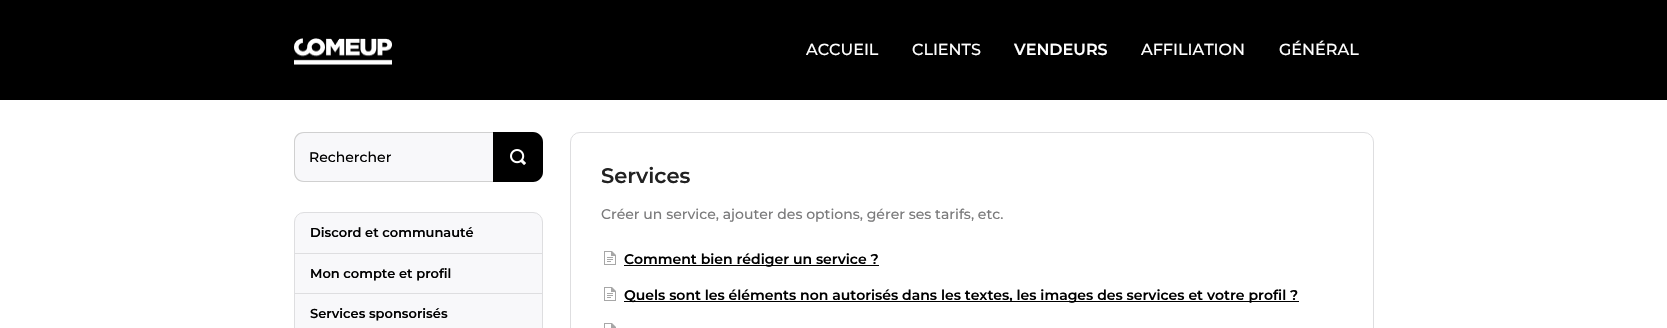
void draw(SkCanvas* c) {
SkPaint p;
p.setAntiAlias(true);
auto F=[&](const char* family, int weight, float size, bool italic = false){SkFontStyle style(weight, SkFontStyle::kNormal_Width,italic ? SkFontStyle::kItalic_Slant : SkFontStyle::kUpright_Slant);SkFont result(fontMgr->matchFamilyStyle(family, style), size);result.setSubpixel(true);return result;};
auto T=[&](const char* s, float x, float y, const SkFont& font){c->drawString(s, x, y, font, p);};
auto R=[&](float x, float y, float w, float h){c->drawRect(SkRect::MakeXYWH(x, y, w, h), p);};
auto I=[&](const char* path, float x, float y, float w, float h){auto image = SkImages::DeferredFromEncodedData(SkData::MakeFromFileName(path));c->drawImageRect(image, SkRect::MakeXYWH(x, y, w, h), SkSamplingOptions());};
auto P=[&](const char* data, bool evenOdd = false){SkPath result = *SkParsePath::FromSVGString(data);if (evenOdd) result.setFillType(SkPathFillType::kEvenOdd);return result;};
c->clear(0xffffffff);
p.setColor(0xff000000);
R(0,0,1667,100);
I("1.png",294,38,98,27);
auto f1 = F("Montserrat",500,16);
p.setColor(0xffffffff);
T("ACCUEIL",806,55,f1);
T("CLIENTS",912,55,f1);
auto f2 = F("Montserrat",600,16);
T("VENDEURS",1014,55,f2);
T("AFFILIATION",1141,55,f1);
T("GÉNÉRAL",1279,55,f1);
p.setColor(0xfff8f8fa);
c->drawPath(P("M304 132h189v50h-189c-5.5 0-10-4.5-10-10v-30c0-5.5 4.5-10 10-10z"),p);
p.setColor(0xffd0d0d0);
c->drawPath(P("M304 132h189v50h-189c-6 0-10-4-10-10v-30c0-6 4-10 10-10zm0 1h189v48h-189c-5 0-9-4-9-9v-30c0-5 4-9 9-9z",true),p);
auto f3 = F("Montserrat",500,14);
p.setColor(0xff000000);
T("Rechercher",309,162,f3);
c->drawPath(P("M493 132h40c5.5 0 10 4.5 10 10v30c0 5.5-4.5 10-10 10h-40z"),p);
I("2.png",510,149,16,16);
p.setColor(0xfff8f8fa);
c->drawRoundRect(SkRect::MakeXYWH(294.5,212.5,248,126),9.5,9.5,p);
p.setStroke(true);
p.setStrokeWidth(1);
p.setColor(0xffdedee0);
c->drawRoundRect(SkRect::MakeXYWH(294.5,212.5,248,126),9.5,9.5,p);
auto f4 = F("Montserrat",600,13);
p.setStroke(false);
p.setColor(0xff000000);
T("Discord et communauté",310,237,f4);
p.setColor(0xffdedee0);
R(295,253,247,1);
p.setColor(0xff000000);
T("Mon compte et profil",310,278,f4);
p.setColor(0xffdedee0);
R(295,293,247,1);
p.setColor(0xff000000);
T("Services sponsorisés",310,318,f4);
p.setStroke(true);
p.setColor(0xffdedee0);
c->drawRoundRect(SkRect::MakeXYWH(570.5,132.5,803,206),9.5,9.5,p);
auto f5 = F("Montserrat",600,21);
p.setStroke(false);
p.setColor(0xff222222);
T("Services",601,183,f5);
p.setColor(0xff7b7b7c);
T("Créer un service, ajouter des options, gérer ses tarifs, etc.",601,219,f3);
I("3.png",604,251,12,14);
p.setColor(0xff000000);
R(624,265,255,1);
auto f6 = F("Montserrat",600,14);
T("Comment bien rédiger un service ?",624,264,f6);
I("3.png",604,287,12,14);
R(624,301,675,1);
T("Quels sont les éléments non autorisés dans les textes, les images des services et votre profil ?",624,300,f6);
I("4.png",604,323,12,5);
}
